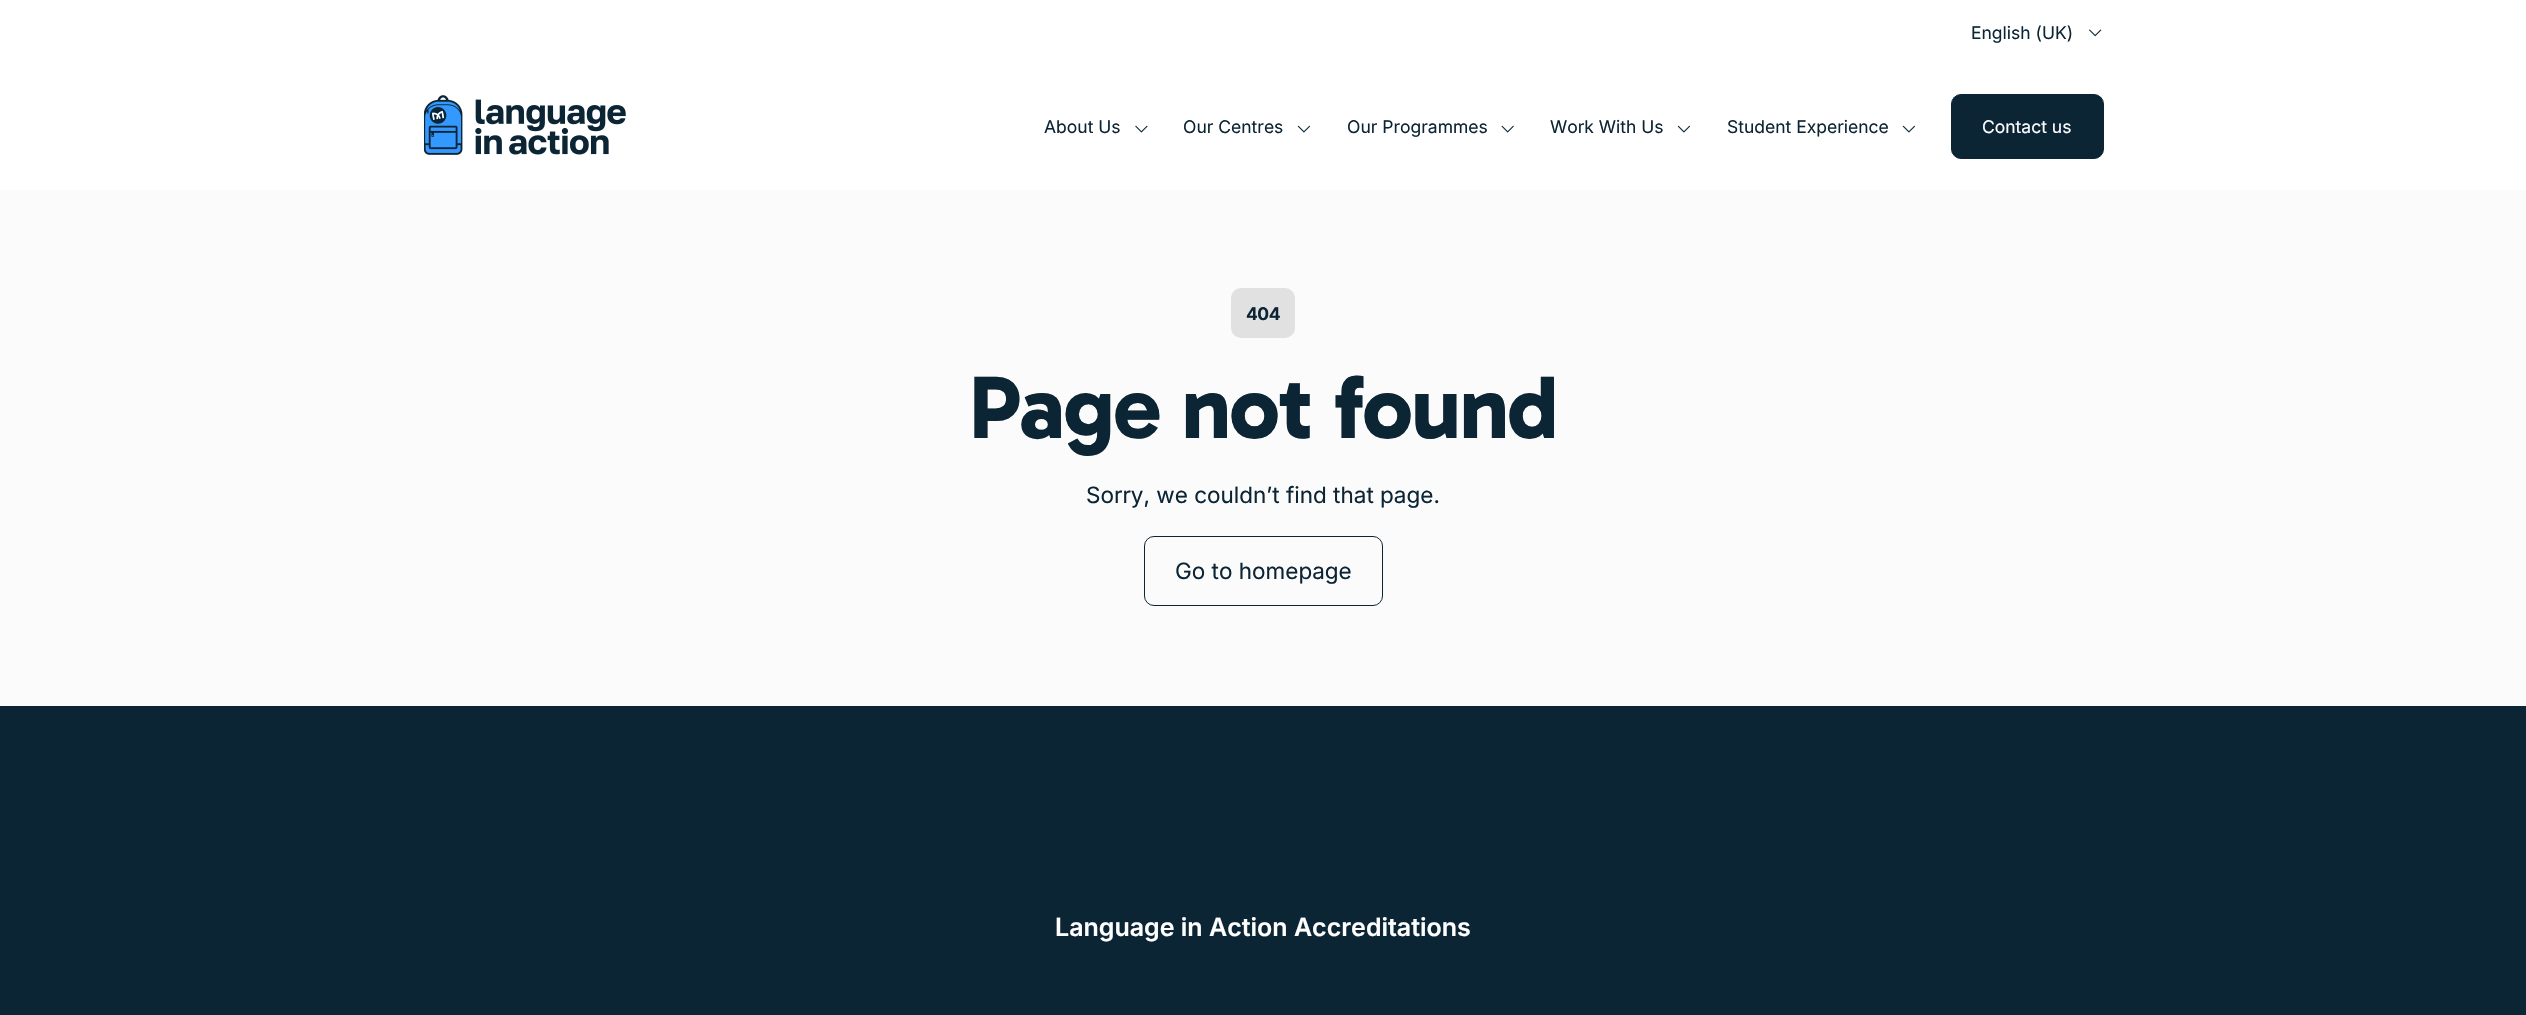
void draw(SkCanvas* c) {
SkPaint p;
p.setAntiAlias(true);
auto F=[&](const char* family, int weight, float size, bool italic = false){SkFontStyle style(weight, SkFontStyle::kNormal_Width,italic ? SkFontStyle::kItalic_Slant : SkFontStyle::kUpright_Slant);SkFont result(fontMgr->matchFamilyStyle(family, style), size);result.setSubpixel(true);return result;};
auto T=[&](const char* s, float x, float y, const SkFont& font){c->drawString(s, x, y, font, p);};
auto L=[&](const char* s, float x, float y, const SkFont& font, const SkPaint& ink, float letter, float word){std::vector<SkGlyphID> glyphs(font.countText(s, strlen(s), SkTextEncoding::kUTF8));std::vector<float> xs(glyphs.size());font.textToGlyphs(s, strlen(s), SkTextEncoding::kUTF8, glyphs);font.getXPos(glyphs, xs, x);float extra = 0;for (size_t i = 0; i < glyphs.size(); i++) {xs[i] += extra;extra += letter + word * (glyphs[i] == font.unicharToGlyph(' '));}c->drawTextBlob(SkTextBlob::MakeFromPosHGlyphs(glyphs, xs, y, font), 0, 0, ink);};
auto R=[&](float x, float y, float w, float h){c->drawRect(SkRect::MakeXYWH(x, y, w, h), p);};
auto Q=[&](float x, float y, float w, float h, float radius){c->drawRoundRect(SkRect::MakeXYWH(x, y, w, h), radius, radius, p);};
auto I=[&](const char* path, float x, float y, float w, float h){auto image = SkImages::DeferredFromEncodedData(SkData::MakeFromFileName(path));c->drawImageRect(image, SkRect::MakeXYWH(x, y, w, h), SkSamplingOptions());};
c->clear(0xfffbfbfb);
p.setColor(0xffffffff);
R(0,0,2526,190);
auto f1 = F("Inter",400,17.5);
p.setColor(0xff0c2535);
T("English (UK)",1971,39,f1);
I("1.png",2089,29,13,8);
I("2.png",424,95,202,60);
T("About Us",1044,133,f1);
I("3.png",1135,125,13,8);
T("Our Centres",1183,133,f1);
I("4.png",1297,125,13,8);
T("Our Programmes",1347,133,f1);
I("5.png",1501,125,13,8);
T("Work With Us",1550,133,f1);
I("4.png",1677,125,13,8);
T("Student Experience",1727,133,f1);
I("4.png",1902,125,13,8);
c->drawRoundRect(SkRect::MakeXYWH(1951.5,94.5,152,64),9.5,9.5,p);
p.setStroke(true);
p.setStrokeWidth(1);
c->drawRoundRect(SkRect::MakeXYWH(1951.5,94.5,152,64),9.5,9.5,p);
p.setStroke(false);
p.setColor(0xffffffff);
T("Contact us",1982,133,f1);
p.setColor(0xffe1e1e1);
Q(1231,288,64,50,10);
auto f2 = F("Inter",700,17.5);
p.setColor(0xff0c2535);
L("404",1246,320,f2,p,-.5,0);
auto f3 = F("Gabarito",700,90);
L("Page not found",969,438,f3,p,-1.75,0);
auto f4 = F("Inter",400,22.5);
T("Sorry, we couldn’t find that page.",1086,503,f4);
p.setStroke(true);
c->drawRoundRect(SkRect::MakeXYWH(1144.5,536.5,238,69),9.5,9.5,p);
p.setStroke(false);
T("Go to homepage",1175,579,f4);
R(0,706,2526,309);
auto f5 = F("Inter",600,25);
p.setColor(0xffffffff);
T("Language in Action Accreditations",1055,936,f5);
}
